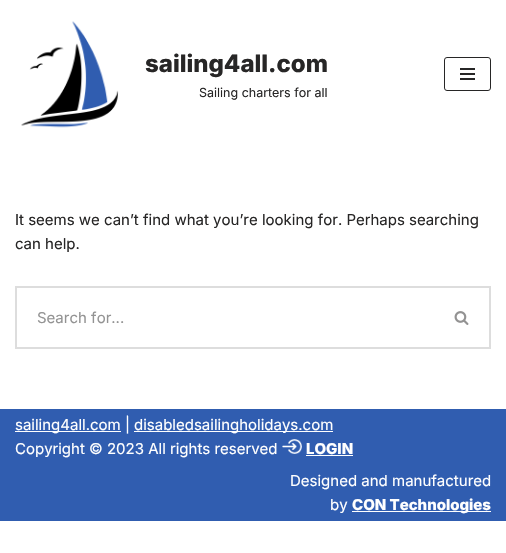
void draw(SkCanvas* c) {
SkPaint p;
p.setAntiAlias(true);
auto F=[&](const char* family, int weight, float size, bool italic = false){SkFontStyle style(weight, SkFontStyle::kNormal_Width,italic ? SkFontStyle::kItalic_Slant : SkFontStyle::kUpright_Slant);SkFont result(fontMgr->matchFamilyStyle(family, style), size);result.setSubpixel(true);return result;};
auto T=[&](const char* s, float x, float y, const SkFont& font){c->drawString(s, x, y, font, p);};
auto R=[&](float x, float y, float w, float h){c->drawRect(SkRect::MakeXYWH(x, y, w, h), p);};
auto I=[&](const char* path, float x, float y, float w, float h){auto image = SkImages::DeferredFromEncodedData(SkData::MakeFromFileName(path));c->drawImageRect(image, SkRect::MakeXYWH(x, y, w, h), SkSamplingOptions());};
c->clear(0xffffffff);
I("1.png",21,21,98,107);
auto f1 = F("Inter",800,24);
p.setColor(0xff272626);
T("sailing4all.com",145,72,f1);
auto f2 = F("Inter",400,12.5);
T("Sailing charters for all",199,97,f2);
p.setStroke(true);
p.setStrokeWidth(1);
c->drawRoundRect(SkRect::MakeXYWH(444.5,57.5,46,33),2.5,2.5,p);
p.setStroke(false);
R(460,68,15,2);
R(460,73,15,2);
R(460,78,15,2);
auto f3 = F("Inter",400,15);
T("It seems we can’t find what you’re looking for. Perhaps searching",15,225,f3);
T("can help.",15,249,f3);
p.setColor(0xffdddddd);
R(15,286,476,2);
R(15,347,419,2);
R(15,286,2,63);
p.setColor(0xff939393);
T("Search for...",37,323,f3);
p.setColor(0xffdddddd);
R(489,286,2,63);
R(434,347,57,2);
I("2.png",454,311,15,14);
p.setColor(0xff305db0);
R(0,409,506,112);
p.setColor(0xffffffff);
R(15,431,106,1);
T("sailing4all.com |",15,430,f3);
R(134,431,199,1);
T("disabledsailingholidays.com",134,430,f3);
T("Copyright © 2023 All rights reserved",15,454,f3);
I("3.png",282,439,20,15);
auto f4 = F("Inter",800,15);
T("LOGIN",306,454,f4);
R(306,455,47,1);
T("Designed and manufactured",290,486,f3);
T("by",330,510,f3);
R(352,511,139,1);
T("CON Technologies",352,510,f4);
}
